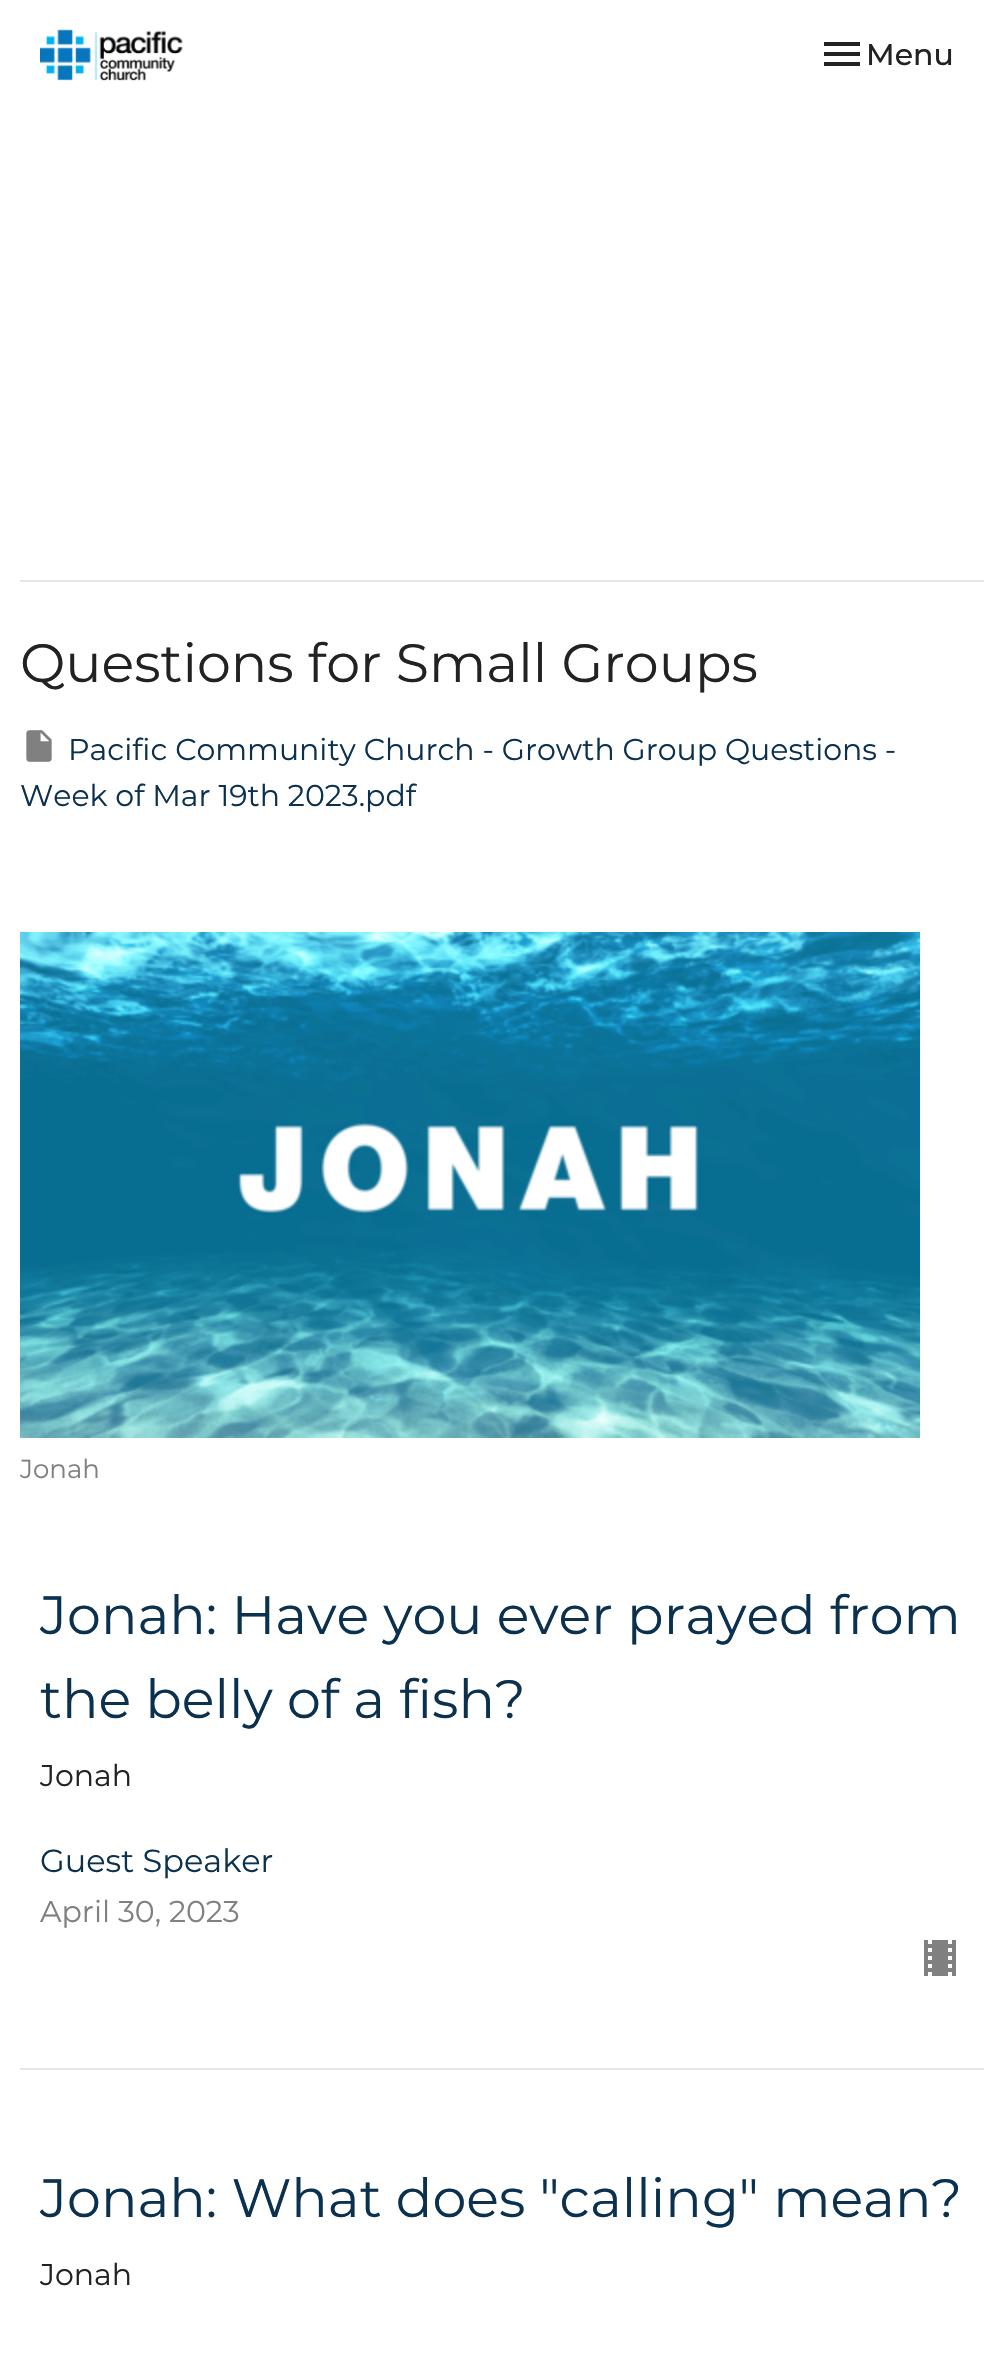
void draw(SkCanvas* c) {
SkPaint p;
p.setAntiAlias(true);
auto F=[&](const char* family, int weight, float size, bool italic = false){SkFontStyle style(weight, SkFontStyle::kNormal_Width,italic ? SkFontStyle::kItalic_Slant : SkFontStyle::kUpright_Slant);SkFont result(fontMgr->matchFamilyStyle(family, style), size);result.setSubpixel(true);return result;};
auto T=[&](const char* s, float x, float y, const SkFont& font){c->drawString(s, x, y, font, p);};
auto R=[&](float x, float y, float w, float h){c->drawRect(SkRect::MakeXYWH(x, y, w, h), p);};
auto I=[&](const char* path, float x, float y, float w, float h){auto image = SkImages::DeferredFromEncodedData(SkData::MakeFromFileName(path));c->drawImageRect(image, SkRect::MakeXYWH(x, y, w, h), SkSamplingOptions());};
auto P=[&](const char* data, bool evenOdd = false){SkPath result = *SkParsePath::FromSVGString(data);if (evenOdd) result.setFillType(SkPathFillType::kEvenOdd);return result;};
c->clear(0xffffffff);
I("1.png",40,29,143,52);
p.setColor(0xff222222);
c->drawPath(P("M824 66h36v-4h-36zm0-10h36v-4h-36zm0-14v4h36v-4z"),p);
auto f1 = F("Montserrat",500,30);
T("Menu",866,65,f1);
p.setColor(0xffe6e6e6);
R(20,580,964,2);
auto f2 = F("Montserrat",400,54);
p.setColor(0xff222222);
T("Questions for Small Groups",20,682,f2);
I("2.png",26,730,26,32);
auto f3 = F("Montserrat",400,30);
p.setColor(0xff0b314f);
T("Pacific Community Church - Growth Group Questions -",68,760,f3);
T("Week of Mar 19th 2023.pdf",20,806,f3);
I("3.png",20,932,900,506);
auto f4 = F("Montserrat",400,26);
p.setColor(0xff808080);
T("Jonah",20,1478,f4);
p.setColor(0xffe6e6e6);
R(20,2068,964,2);
p.setColor(0xff0b314f);
T("Jonah: Have you ever prayed from",40,1634,f2);
T("the belly of a fish?",40,1718,f2);
p.setColor(0xff222222);
T("Jonah",40,1786,f3);
auto f5 = F("Montserrat",400,32);
p.setColor(0xff0b314f);
T("Guest Speaker",40,1872,f5);
p.setColor(0xff808080);
T("April 30, 2023",40,1922,f3);
I("4.png",924,1940,32,36);
p.setColor(0xff0b314f);
T("Jonah: What does \"calling\" mean?",40,2217,f2);
p.setColor(0xff222222);
T("Jonah",40,2285,f3);
}
